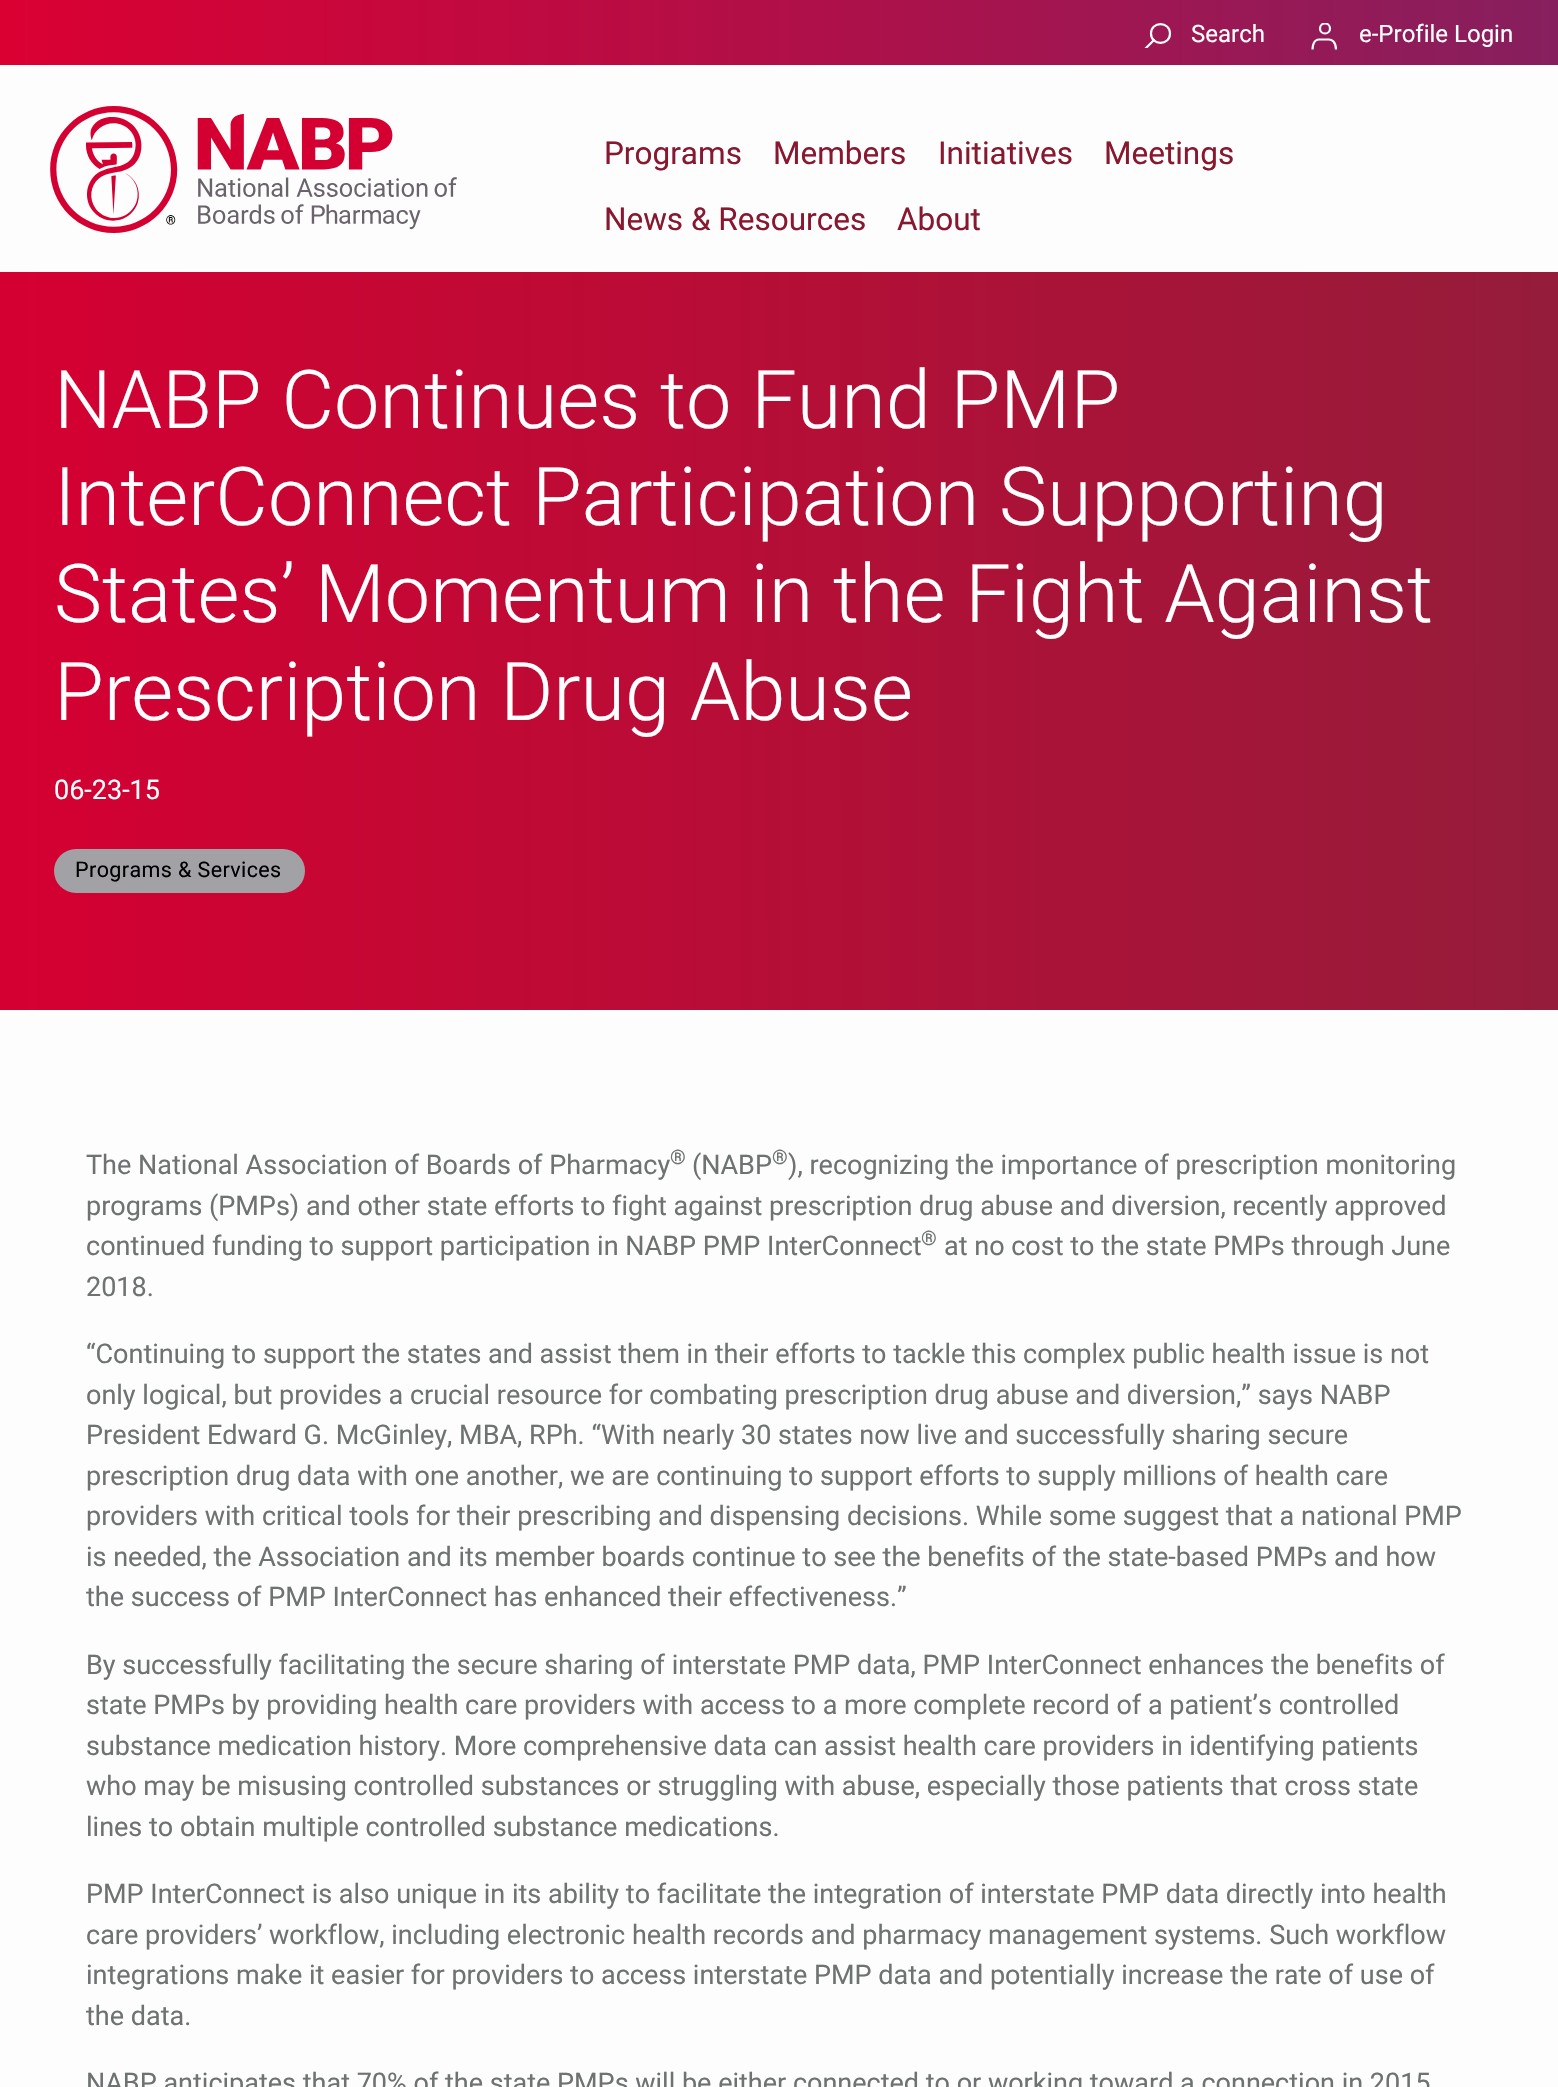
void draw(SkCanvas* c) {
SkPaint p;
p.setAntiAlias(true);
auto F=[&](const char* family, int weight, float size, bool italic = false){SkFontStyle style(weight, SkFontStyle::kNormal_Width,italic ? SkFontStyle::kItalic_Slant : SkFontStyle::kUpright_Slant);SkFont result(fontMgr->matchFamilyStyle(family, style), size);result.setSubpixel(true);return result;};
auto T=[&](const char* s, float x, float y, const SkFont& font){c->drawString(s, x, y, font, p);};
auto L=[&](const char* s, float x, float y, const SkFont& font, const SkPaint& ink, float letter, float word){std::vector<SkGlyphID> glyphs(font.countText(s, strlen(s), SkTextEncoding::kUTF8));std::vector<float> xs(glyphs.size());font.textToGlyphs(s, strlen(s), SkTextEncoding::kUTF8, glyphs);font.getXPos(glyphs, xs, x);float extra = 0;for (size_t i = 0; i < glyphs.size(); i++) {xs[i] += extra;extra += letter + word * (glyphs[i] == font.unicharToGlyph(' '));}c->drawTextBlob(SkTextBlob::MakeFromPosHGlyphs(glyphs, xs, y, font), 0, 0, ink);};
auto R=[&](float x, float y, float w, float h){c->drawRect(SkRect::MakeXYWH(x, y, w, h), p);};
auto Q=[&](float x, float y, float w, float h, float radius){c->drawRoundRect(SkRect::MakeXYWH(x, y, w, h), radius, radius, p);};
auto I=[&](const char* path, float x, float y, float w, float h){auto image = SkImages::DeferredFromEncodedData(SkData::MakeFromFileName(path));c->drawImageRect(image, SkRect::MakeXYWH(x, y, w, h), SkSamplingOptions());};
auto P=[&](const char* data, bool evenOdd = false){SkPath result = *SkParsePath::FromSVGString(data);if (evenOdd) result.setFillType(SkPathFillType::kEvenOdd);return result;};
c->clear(0xfffdfdfd);
{
const SkColor colors[] = {0xffdb0032,0xff871f5e};
const float stops[] = {0,1};
const SkPoint ends[] = {{0,32}, {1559,32}};
p.setShader(SkGradientShader::MakeLinear(ends, colors, stops, 2, SkTileMode::kClamp));
p.setAlpha(255);
}
R(0,0,1558,65);
auto f1 = F("Roboto",400,24);
p.setShader(nullptr);
p.setColor(0xffffffff);
T("Search",1191,42,f1);
p.setStroke(true);
p.setStrokeWidth(2.2);
p.setStrokeCap(SkPaint::kRound_Cap);
p.setStrokeJoin(SkPaint::kRound_Join);
c->drawPath(P("M1151 33.5c0 12.5 19 12.5 19 0c0-12.5-19-12.5-19 0z"),p);
c->save();
c->clipRect(SkRect::MakeXYWH(1143,23,29,25));
c->drawPath(P("M1154 40l-9.5 9.5"),p);
c->restore();
p.setStroke(false);
T("e-Profile Login",1359,42,f1);
c->save();
c->clipRect(SkRect::MakeXYWH(1311,23,27,28));
p.setStroke(true);
p.setStrokeCap(SkPaint::kButt_Cap);
p.setStrokeJoin(SkPaint::kMiter_Join);
c->drawCircle(1325,28.5,5,p);
c->restore();
c->drawPath(P("M1312.5 49.5c0-3 1-10 6.5-10h10c2.5 0 7 2 7 10"),p);
I("1.png",50,106,407,127);
auto f2 = F("Roboto",400,31.5);
p.setStroke(false);
p.setColor(0xff88182f);
T("Programs",604,164,f2);
T("Members",773,164,f2);
T("Initiatives",938,164,f2);
T("Meetings",1104,164,f2);
T("News & Resources",604,230,f2);
T("About",897,230,f2);
{
const SkColor colors[] = {0xffd50032,0xff951c3b};
const float stops[] = {0,1};
const SkPoint ends[] = {{0,641}, {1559,640}};
p.setShader(SkGradientShader::MakeLinear(ends, colors, stops, 2, SkTileMode::kClamp));
p.setAlpha(255);
}
R(0,272,1558,738);
auto f3 = F("Roboto",300,81);
p.setShader(nullptr);
p.setColor(0xffffffff);
T("NABP Continues to Fund PMP",54,428,f3);
T("InterConnect Participation Supporting",54,525,f3);
T("States’ Momentum in the Fight Against",54,622,f3);
T("Prescription Drug Abuse",54,720,f3);
auto f4 = F("Roboto",400,27);
T("06-23-15",54,799,f4);
p.setColor(0xffa2a1a5);
Q(54,849,251,44,22);
auto f5 = F("Roboto",400,21.5);
p.setColor(0xff000000);
L("Programs & Services",75,877,f5,p,.4,0);
p.setColor(0xff6e7272);
T("The National Association of Boards of Pharmacy",86,1174,f4);
auto f6 = F("Roboto",400,20);
T("®",670,1164,f6);
T("(NABP",692,1174,f4);
T("®",772,1164,f6);
T("), recognizing the importance of prescription monitoring",788,1174,f4);
T("programs (PMPs) and other state efforts to fight against prescription drug abuse and diversion, recently approved",86,1215,f4);
T("continued funding to support participation in NABP PMP InterConnect",86,1255,f4);
T("®",921,1245,f6);
T("at no cost to the state PMPs through June",944,1255,f4);
T("2018.",86,1296,f4);
T("“Continuing to support the states and assist them in their efforts to tackle this complex public health issue is not",86,1363,f4);
T("only logical, but provides a crucial resource for combating prescription drug abuse and diversion,” says NABP",86,1404,f4);
T("President Edward G. McGinley, MBA, RPh. “With nearly 30 states now live and successfully sharing secure",86,1444,f4);
T("prescription drug data with one another, we are continuing to support efforts to supply millions of health care",86,1485,f4);
T("providers with critical tools for their prescribing and dispensing decisions. While some suggest that a national PMP",86,1525,f4);
T("is needed, the Association and its member boards continue to see the benefits of the state-based PMPs and how",86,1566,f4);
T("the success of PMP InterConnect has enhanced their effectiveness.”",86,1606,f4);
T("By successfully facilitating the secure sharing of interstate PMP data, PMP InterConnect enhances the benefits of",86,1674,f4);
T("state PMPs by providing health care providers with access to a more complete record of a patient’s controlled",86,1714,f4);
T("substance medication history. More comprehensive data can assist health care providers in identifying patients",86,1755,f4);
T("who may be misusing controlled substances or struggling with abuse, especially those patients that cross state",86,1795,f4);
T("lines to obtain multiple controlled substance medications.",86,1836,f4);
T("PMP InterConnect is also unique in its ability to facilitate the integration of interstate PMP data directly into health",86,1903,f4);
T("care providers’ workflow, including electronic health records and pharmacy management systems. Such workflow",86,1944,f4);
T("integrations make it easier for providers to access interstate PMP data and potentially increase the rate of use of",86,1984,f4);
T("the data.",86,2025,f4);
T("NABP anticipates that 70% of the state PMPs will be either connected to or working toward a connection in 2015",86,2092,f4);
}
